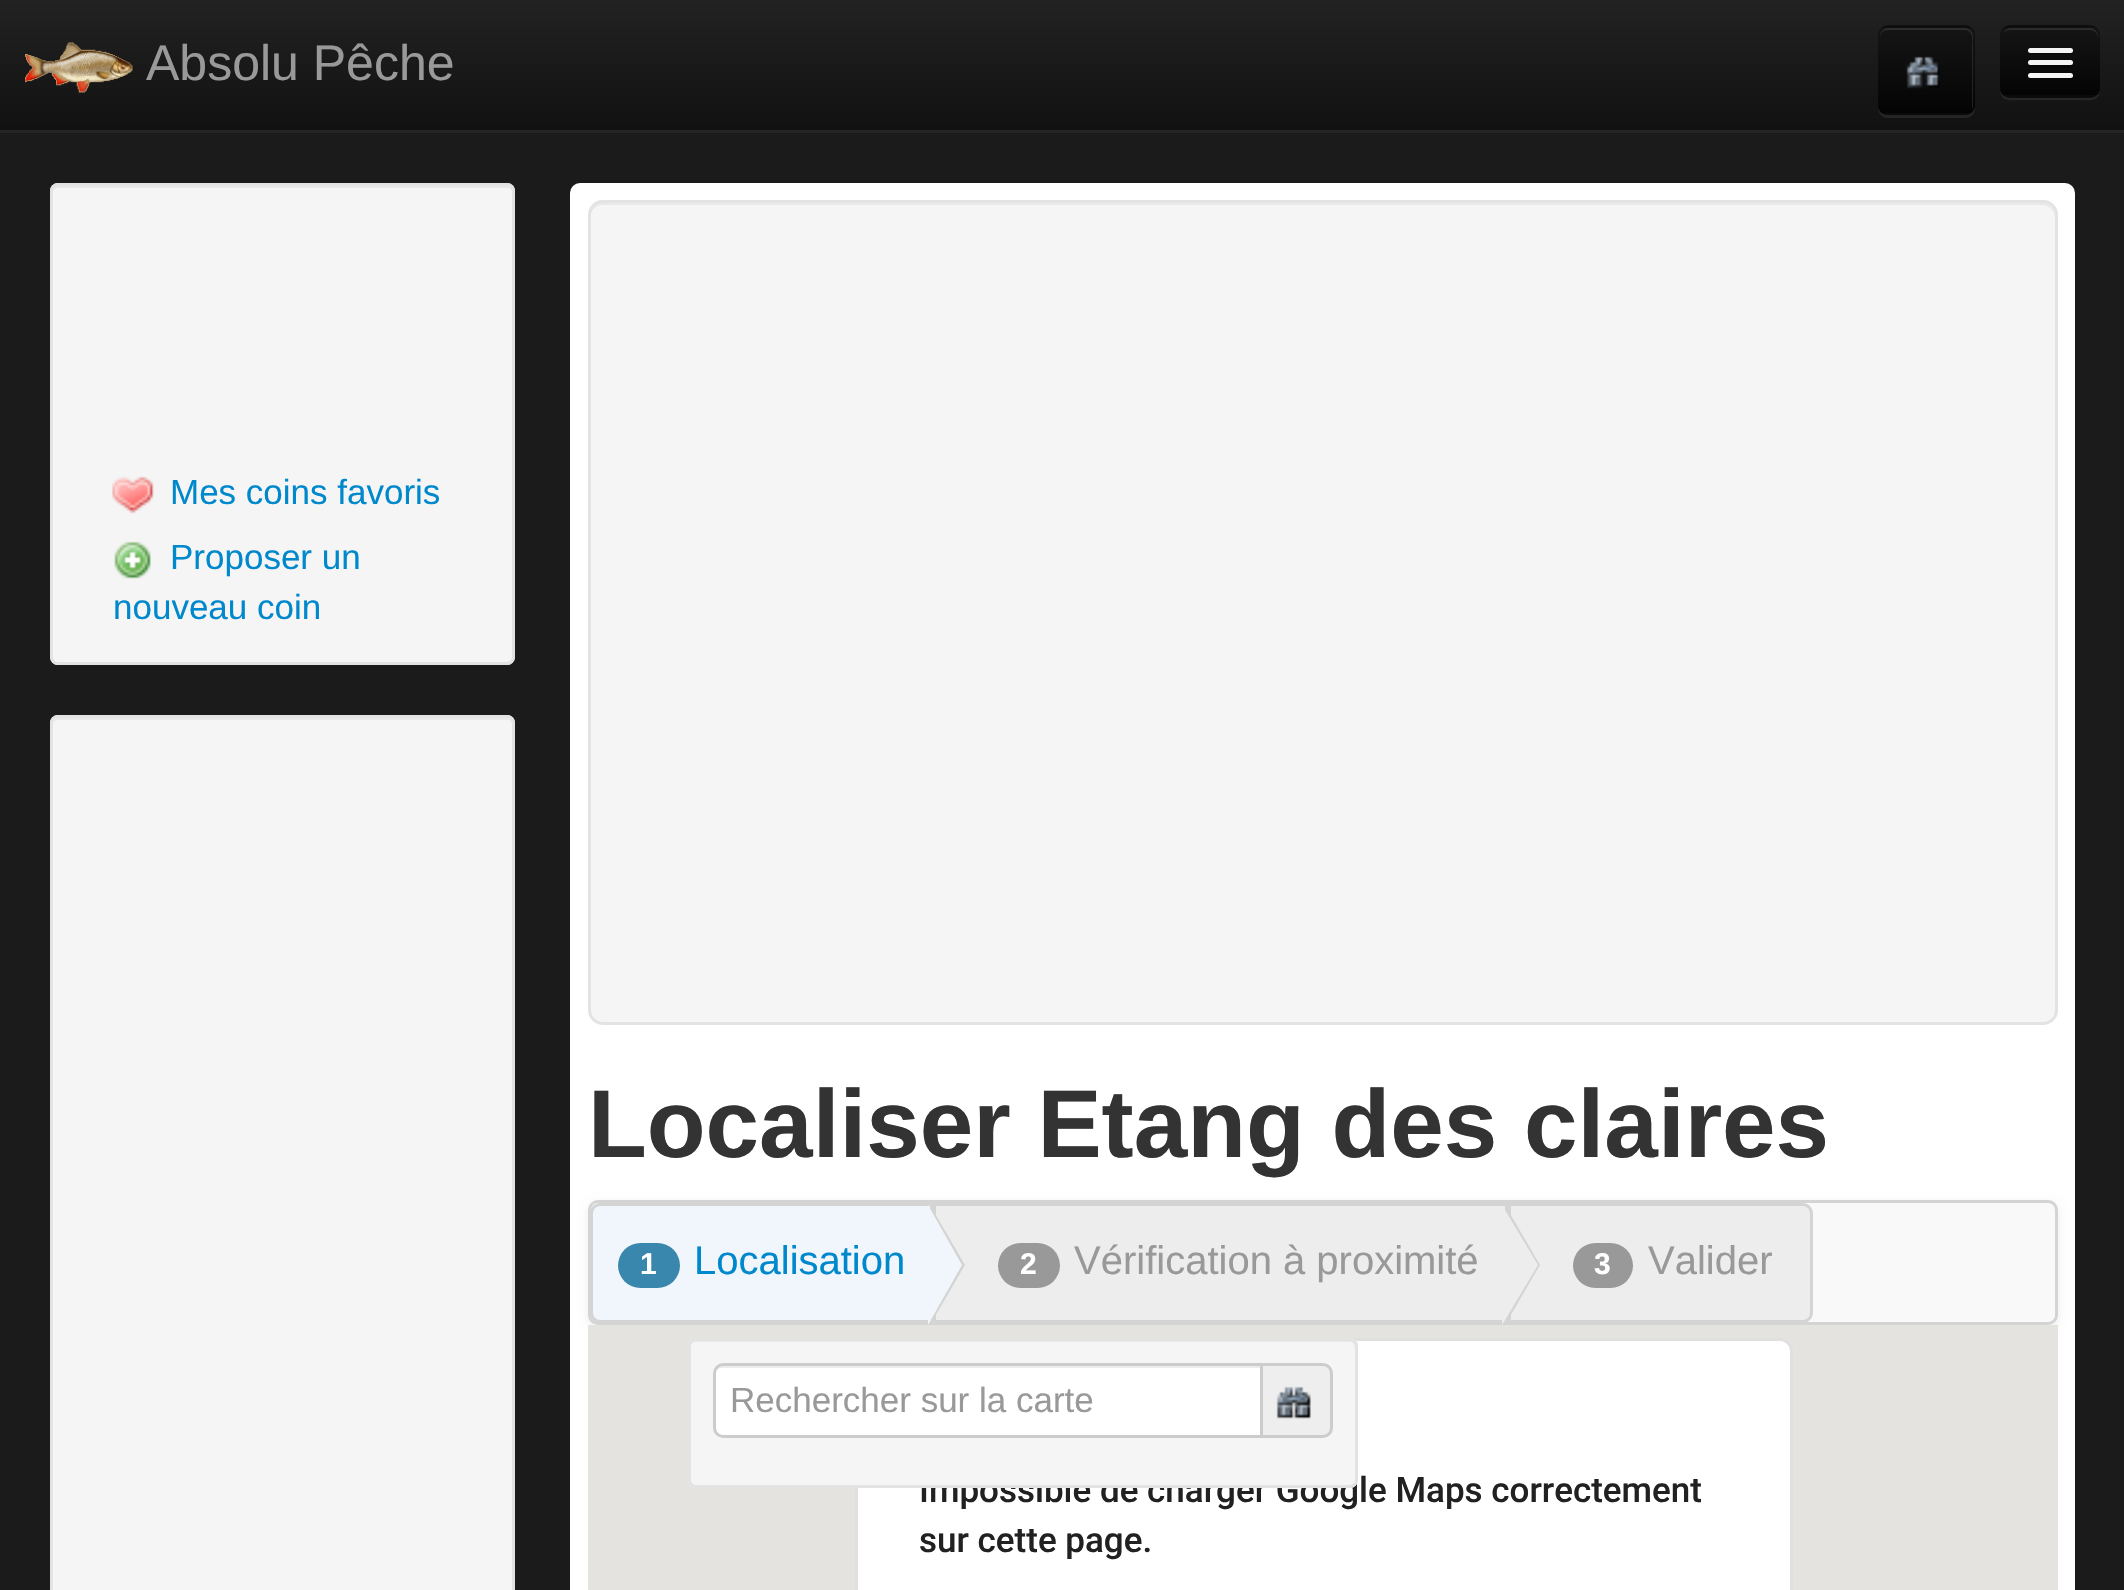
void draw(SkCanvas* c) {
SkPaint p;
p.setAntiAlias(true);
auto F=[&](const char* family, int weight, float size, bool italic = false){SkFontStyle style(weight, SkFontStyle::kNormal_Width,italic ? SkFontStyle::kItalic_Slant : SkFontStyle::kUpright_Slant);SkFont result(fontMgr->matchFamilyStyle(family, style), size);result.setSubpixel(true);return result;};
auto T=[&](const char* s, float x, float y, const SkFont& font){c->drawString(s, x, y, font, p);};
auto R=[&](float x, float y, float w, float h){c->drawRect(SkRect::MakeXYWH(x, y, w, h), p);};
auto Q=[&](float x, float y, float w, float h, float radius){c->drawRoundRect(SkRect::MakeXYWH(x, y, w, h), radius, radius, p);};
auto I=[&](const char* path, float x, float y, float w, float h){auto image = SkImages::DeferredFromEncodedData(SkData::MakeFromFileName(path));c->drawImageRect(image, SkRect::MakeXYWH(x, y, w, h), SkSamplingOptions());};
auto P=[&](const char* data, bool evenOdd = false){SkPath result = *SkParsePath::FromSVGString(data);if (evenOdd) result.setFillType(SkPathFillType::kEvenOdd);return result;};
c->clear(0xff1b1b1b);
{
const SkColor colors[] = {0xff222222,0xff111111};
const float stops[] = {0,1};
const SkPoint ends[] = {{1063,0}, {1063,130}};
p.setShader(SkGradientShader::MakeLinear(ends, colors, stops, 2, SkTileMode::kClamp));
p.setAlpha(255);
}
R(0,0,2124,130);
p.setShader(nullptr);
p.setColor(0xff252525);
R(0,130,2124,3);
I("1.png",25,42,108,51);
auto f1 = F("Liberation Sans",400,50);
p.setColor(0xff999999);
T("Absolu Pêche",146,80,f1);
p.setColor(0xff252525);
c->drawPath(P("M1878 108c0 6 5 10 10 10h77c6 0 10-4 10-10v-3c0 6-4 10-10 10h-77c-5 0-9-3-10-7z"),p);
p.setColor(0xff0e0e0e);
Q(1878,25,97,90,10);
c->save();
c->clipPath(P("M1888 25h77c5.5 0 10 4.5 10 10v70c0 5.5-4.5 10-10 10h-77c-5.5 0-10-4.5-10-10v-70c0-5.5 4.5-10 10-10z"),true);
{
const SkColor colors[] = {0xff151515,0xff040404};
const float stops[] = {0,1};
const SkPoint ends[] = {{1926,27}, {1926,113}};
p.setShader(SkGradientShader::MakeLinear(ends, colors, stops, 2, SkTileMode::kClamp));
p.setAlpha(255);
}
R(1878,28,97,85);
c->restore();
p.setShader(nullptr);
p.setColor(0x1affffff);
c->drawPath(P("M1888 30h78c9 2 6 15 6 20v59c1-1 1-3 1-4v-69c0-4-4-8-8-8h-77c-4 0-8 4-8 8v2c0-5 3-8 8-8z"),p);
p.setStroke(true);
p.setStrokeWidth(2.5);
p.setColor(0x40000000);
c->drawPath(P("M1971 111c-1.5 2-3.5 3-6 3h-77.5c-2.5 0-4.5-1-6-3"),p);
I("2.png",1905,56,35,33);
p.setStroke(false);
p.setColor(0xff272727);
c->drawPath(P("M2000 88c0 15 11 12 23 12h54c12 0 23 3 23-12c0 5-4 10-10 10h-80c-6 0-10-5-10-10z"),p);
p.setColor(0xff0e0e0e);
Q(2000,25,100,73,10);
c->save();
c->clipPath(P("M2010 25h80c5.5 0 10 4.5 10 10v53c0 5.5-4.5 10-10 10h-80c-5.5 0-10-4.5-10-10v-53c0-5.5 4.5-10 10-10z"),true);
{
const SkColor colors[] = {0xff151515,0xff040404};
const float stops[] = {0,1};
const SkPoint ends[] = {{2050,27}, {2050,95}};
p.setShader(SkGradientShader::MakeLinear(ends, colors, stops, 2, SkTileMode::kClamp));
p.setAlpha(255);
}
R(2000,28,100,67);
c->restore();
p.setShader(nullptr);
p.setColor(0xff2c2c2c);
c->drawPath(P("M2010 30h80c4 0 8 3 8 8v-2c0-4-4-8-8-8h-79c-3 0-6 2-8 5c2-2 5-3 7-3z"),p);
p.setStroke(true);
p.setColor(0x40000000);
c->drawPath(P("M2096 93.5c-1.5 2-3.5 2.5-6 2.5h-80c-2.5 0-4.5-.5-6-2.5"),p);
p.setStroke(false);
p.setColor(0xff0b0b0b);
c->drawPath(P("M2028 52c-2 5 8 3 9 3h27c1 0 8 2 9-2l-1-2l-2 1h-40z"),p);
p.setColor(0xfff5f5f5);
Q(2028,48,45,5,2.5);
p.setColor(0xff080808);
c->drawPath(P("M2028 64c-2 5 9 4 9 4h27c1 0 8 2 9-2l-1-2l-2 1c-3 0-40 1-42-1z"),p);
p.setColor(0xfff5f5f5);
Q(2028,60,45,5,2.5);
Q(2028,73,45,5,2.5);
Q(50,183,465,482,8);
p.setColor(0xffe9e9e9);
c->drawPath(P("M58 188h450c2 0 4 2 4 4v469c1-1 1-2 1-3v-468c0-3-2-5-5-5h-450c-3 0-5 2-5 5c1-1 3-2 5-2z"),p);
p.setStroke(true);
p.setStrokeWidth(3);
p.setColor(0xffe3e3e3);
c->drawRoundRect(SkRect::MakeXYWH(51.5,184.5,462,479),6.5,6.5,p);
I("3.png",112,476,42,38);
auto f2 = F("Liberation Sans",400,35);
p.setStroke(false);
p.setColor(0xff0088cc);
T("Mes coins favoris",170,504,f2);
I("4.png",114,541,37,38);
T("Proposer un",170,569,f2);
T("nouveau coin",113,619,f2);
p.setColor(0xfff5f5f5);
Q(50,715,465,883,8);
p.setColor(0xffe9e9e9);
c->drawPath(P("M58 720h450c2 0 4 2 4 5v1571c1-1 1-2 1-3v-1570c0-3-2-5-5-5h-450c-2 0-5 2-5 4c1-1 3-2 5-2z"),p);
p.setStroke(true);
p.setColor(0xffe3e3e3);
c->drawRoundRect(SkRect::MakeXYWH(51.5,716.5,462,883),6.5,6.5,p);
p.setStroke(false);
p.setColor(0xffffffff);
Q(570,183,1505,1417,10);
p.setColor(0xfff5f5f5);
Q(588,200,1470,825,15);
p.setColor(0xffe9e9e9);
c->drawPath(P("M602 205h1440c7 0 13 6 13 13v-2c0-7-6-13-13-13h-1439c-7 0-13 6-13 13v2c0-7 6-13 12-13z"),p);
p.setStroke(true);
p.setColor(0xffe3e3e3);
c->drawRoundRect(SkRect::MakeXYWH(589.5,201.5,1467,822),13.5,13.5,p);
auto f3 = F("Liberation Sans",700,96.25);
p.setStroke(false);
p.setColor(0xff333333);
T("Localiser Etang des claires",588,1157,f3);
p.setColor(0x12000000);
p.setMaskFilter(SkMaskFilter::MakeBlur(kNormal_SkBlurStyle, 5));
c->drawRoundRect(SkRect::MakeXYWH(588,1203,1470,125),10,10,p);
p.setMaskFilter(nullptr);
p.setColor(0xfff9f9f9);
c->drawRoundRect(SkRect::MakeXYWH(589.5,1201.5,1467,122),8.5,8.5,p);
p.setStroke(true);
p.setColor(0xffd4d4d4);
c->drawRoundRect(SkRect::MakeXYWH(589.5,1201.5,1467,122),8.5,8.5,p);
p.setStroke(false);
p.setColor(0xfff1f6fc);
c->drawPath(P("M600 1204.5h331.5v117h-331.5c-4.5 0-8.5-4-8.5-8.5v-100c0-4.5 4-8.5 8.5-8.5z"),p);
p.setStroke(true);
p.setColor(0xffd4d4d4);
c->drawPath(P("M600 1204.5h331.5v117h-331.5c-4.5 0-8.5-4-8.5-8.5v-100c0-4.5 4-8.5 8.5-8.5z"),p);
p.setStroke(false);
p.setColor(0xff3a87ad);
Q(618,1243,62,45,22.5);
auto f4 = F("Liberation Sans",700,30);
p.setColor(0xffffffff);
T("1",640,1274,f4);
auto f5 = F("Liberation Sans",400,40);
p.setColor(0xff0088cc);
T("Localisation",694,1274,f5);
p.setColor(0xffededed);
c->drawRect(SkRect::MakeXYWH(934.5,1204.5,572,117),p);
p.setStroke(true);
p.setColor(0xffd4d4d4);
c->drawRect(SkRect::MakeXYWH(934.5,1204.5,572,117),p);
p.setStroke(false);
c->drawPath(P("M930 1325v-120l35 60z"),p);
p.setColor(0xfff1f6fc);
c->drawPath(P("M928 1325v-120l34 60z"),p);
p.setColor(0xff999999);
Q(998,1243,62,45,22.5);
p.setColor(0xffffffff);
T("2",1020,1274,f4);
p.setColor(0xff999999);
T("Vérification à proximité",1074,1274,f5);
p.setColor(0xffededed);
c->drawPath(P("M1509.5 1204.5h293.5c4.5 0 8.5 4 8.5 8.5v100c0 4.5-4 8.5-8.5 8.5h-293.5z"),p);
p.setStroke(true);
p.setColor(0xffd4d4d4);
c->drawPath(P("M1509.5 1204.5h293.5c4.5 0 8.5 4 8.5 8.5v100c0 4.5-4 8.5-8.5 8.5h-293.5z"),p);
p.setStroke(false);
c->drawPath(P("M1505 1325v-120l35 60z"),p);
p.setColor(0xffededed);
c->drawPath(P("M1502 1325v-120l36 60z"),p);
p.setColor(0xff999999);
Q(1573,1243,60,45,22.5);
p.setColor(0xffffffff);
T("3",1594,1274,f4);
p.setColor(0xff999999);
T("Valider",1648,1274,f5);
p.setColor(0xffe5e3df);
R(588,1325,1470,265);
p.setColor(0xffffffff);
Q(855,1338,938,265,13);
p.setStroke(true);
p.setColor(0x1f000000);
c->drawRoundRect(SkRect::MakeXYWH(856.5,1339.5,935,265),11.5,11.5,p);
auto f6 = F("Roboto",500,35);
p.setStroke(false);
p.setColor(0xff212121);
T("Impossible de charger Google Maps correctement",919,1502,f6);
p.setColor(0xfff5f5f5);
Q(688,1338,670,150,8);
p.setColor(0xffe9e9e9);
c->drawPath(P("M695 1342h655c3 0 5 3 5 6v-3c0-3-2-5-5-5h-655c-3 0-5 2-5 5v3c0-3 2-6 5-6z"),p);
p.setStroke(true);
p.setColor(0xffe3e3e3);
c->drawRoundRect(SkRect::MakeXYWH(689.5,1339.5,667,147),6.5,6.5,p);
p.setStroke(false);
p.setColor(0xffeeeeee);
c->drawPath(P("M1261.5 1364.5h61.5c4.5 0 8.5 4 8.5 8.5v55c0 4.5-4 8.5-8.5 8.5h-61.5z"),p);
p.setStroke(true);
p.setColor(0xffcccccc);
c->drawPath(P("M1261.5 1364.5h61.5c4.5 0 8.5 4 8.5 8.5v55c0 4.5-4 8.5-8.5 8.5h-61.5z"),p);
p.setStroke(false);
p.setColor(0xffffffff);
c->drawPath(P("M723 1363h540v75h-540c-5.5 0-10-4.5-10-10v-55c0-5.5 4.5-10 10-10z"),p);
p.setColor(0xffececec);
c->drawPath(P("M722 1368h538v-3h-537c-6 0-8 5-8 10c0-4 3-7 7-7z"),p);
p.setStroke(true);
p.setColor(0xffcccccc);
c->drawPath(P("M723 1364.5h538.5v72h-538.5c-4.5 0-8.5-4-8.5-8.5v-55c0-4.5 4-8.5 8.5-8.5z"),p);
p.setStroke(false);
p.setColor(0xff999999);
T("Rechercher sur la carte",730,1412,f2);
I("5.png",1276,1386,35,33);
p.setColor(0xff212121);
T("sur cette page.",919,1552,f6);
}
